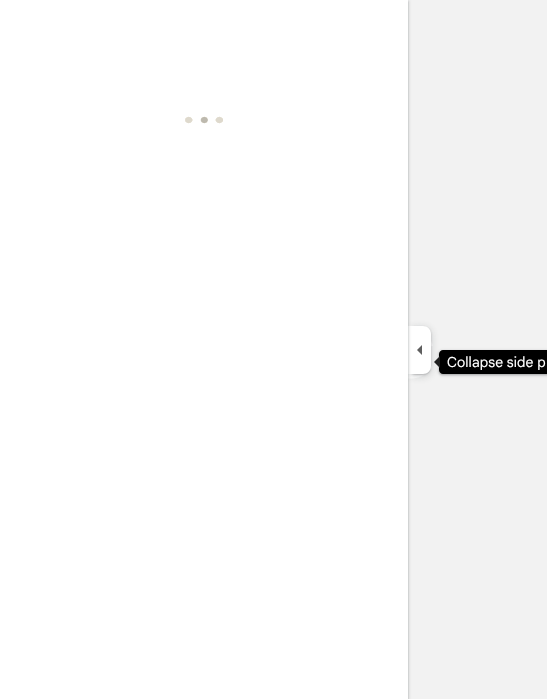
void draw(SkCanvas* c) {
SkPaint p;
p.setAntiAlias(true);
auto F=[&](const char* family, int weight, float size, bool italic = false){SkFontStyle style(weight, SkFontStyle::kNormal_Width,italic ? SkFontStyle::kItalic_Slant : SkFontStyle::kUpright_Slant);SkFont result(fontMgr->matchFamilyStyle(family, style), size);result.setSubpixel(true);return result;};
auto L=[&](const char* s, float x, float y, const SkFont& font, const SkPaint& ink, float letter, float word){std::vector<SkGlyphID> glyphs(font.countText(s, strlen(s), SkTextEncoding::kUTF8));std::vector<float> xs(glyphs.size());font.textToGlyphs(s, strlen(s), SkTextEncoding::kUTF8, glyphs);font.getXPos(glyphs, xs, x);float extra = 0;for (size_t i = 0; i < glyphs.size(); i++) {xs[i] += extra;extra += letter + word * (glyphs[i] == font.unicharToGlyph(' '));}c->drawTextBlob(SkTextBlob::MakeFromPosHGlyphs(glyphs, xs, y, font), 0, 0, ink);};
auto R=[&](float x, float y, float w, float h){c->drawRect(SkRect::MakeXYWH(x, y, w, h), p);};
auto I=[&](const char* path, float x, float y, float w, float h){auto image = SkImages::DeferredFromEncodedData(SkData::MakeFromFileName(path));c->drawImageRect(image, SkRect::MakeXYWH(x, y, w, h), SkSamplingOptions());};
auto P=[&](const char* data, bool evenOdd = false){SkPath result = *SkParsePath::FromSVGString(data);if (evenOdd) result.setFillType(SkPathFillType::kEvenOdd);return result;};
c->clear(0xfff2f2f2);
I("1.png",408,325,25,54);
p.setColor(0x263c4043);
p.setMaskFilter(SkMaskFilter::MakeBlur(kNormal_SkBlurStyle, 3));
c->drawRoundRect(SkRect::MakeXYWH(406,326,27,52),10,10,p);
p.setMaskFilter(nullptr);
p.setColor(0x4d3c4043);
p.setMaskFilter(SkMaskFilter::MakeBlur(kNormal_SkBlurStyle, 1));
c->drawRoundRect(SkRect::MakeXYWH(408,327,23,48),8,8,p);
p.setMaskFilter(nullptr);
p.setColor(0xffffffff);
c->drawPath(P("M408 326h15c4.5 0 8 3.5 8 8v32c0 4.5-3.5 8-8 8h-15z"),p);
p.setColor(0x263c4043);
p.setMaskFilter(SkMaskFilter::MakeBlur(kNormal_SkBlurStyle, 1.5));
c->drawRect(SkRect::MakeXYWH(-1,0,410,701),p);
p.setMaskFilter(nullptr);
p.setColor(0x4d3c4043);
p.setMaskFilter(SkMaskFilter::MakeBlur(kNormal_SkBlurStyle, 1));
c->drawRect(SkRect::MakeXYWH(0,1,408,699),p);
p.setMaskFilter(nullptr);
p.setColor(0xffffffff);
R(0,0,408,699);
I("2.png",185,116,38,8);
p.setColor(0xff5e5e5e);
c->drawPath(P("M422 355l-5-5l5-5z"),p);
p.setColor(0x263c4043);
p.setMaskFilter(SkMaskFilter::MakeBlur(kNormal_SkBlurStyle, 1.5));
c->drawRoundRect(SkRect::MakeXYWH(438,350,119,26),5,5,p);
p.setMaskFilter(nullptr);
p.setColor(0x4d3c4043);
p.setMaskFilter(SkMaskFilter::MakeBlur(kNormal_SkBlurStyle, 1));
c->drawRoundRect(SkRect::MakeXYWH(439,351,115,24),4,4,p);
p.setMaskFilter(nullptr);
p.setColor(0xff000000);
c->drawPath(P("M443 350h104v24h-104c-2 0-4-2-4-4v-16c0-2 2-4 4-4z"),p);
p.setColor(0xff1f1f1f);
c->drawPath(P("M440 356v12l-6-6z"),p);
auto f1 = F("Google Sans",400,14);
p.setColor(0xffffffff);
L("Collapse side p",447,367,f1,p,.1,0);
}
